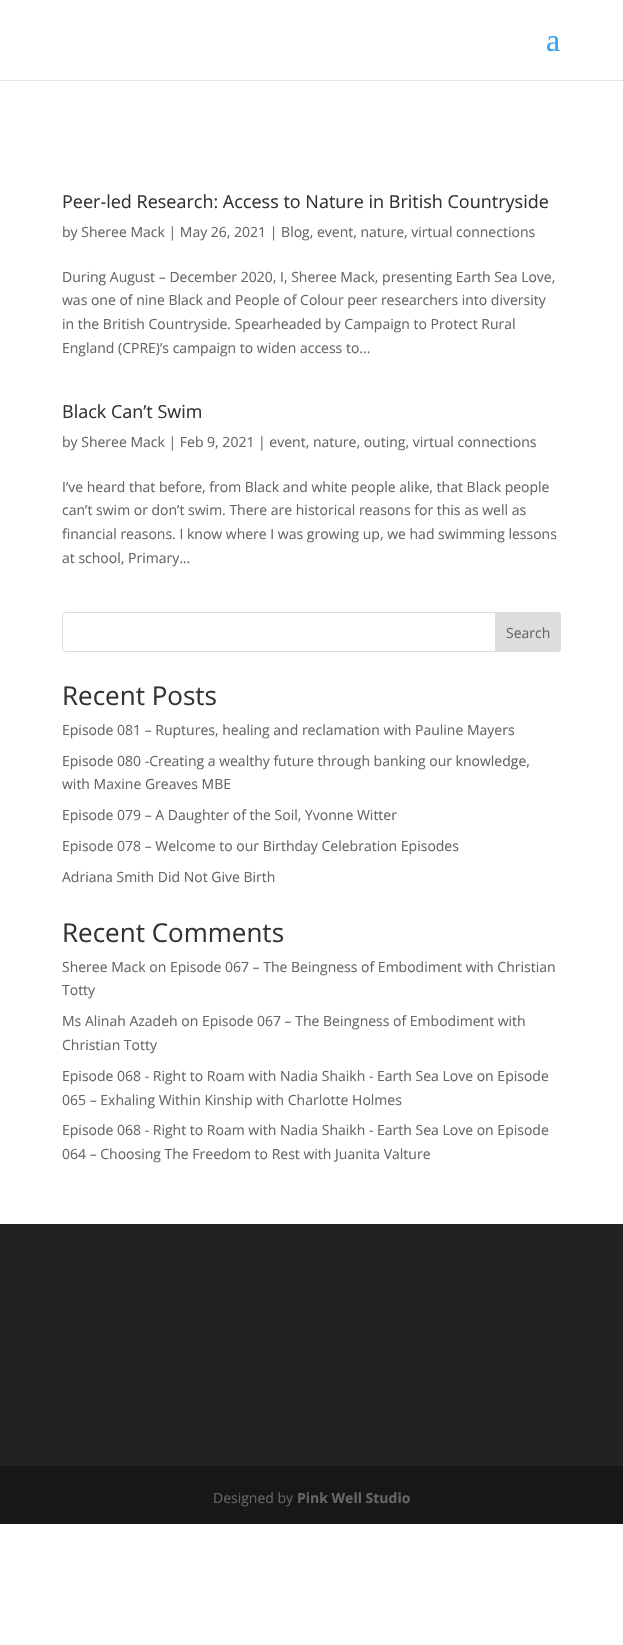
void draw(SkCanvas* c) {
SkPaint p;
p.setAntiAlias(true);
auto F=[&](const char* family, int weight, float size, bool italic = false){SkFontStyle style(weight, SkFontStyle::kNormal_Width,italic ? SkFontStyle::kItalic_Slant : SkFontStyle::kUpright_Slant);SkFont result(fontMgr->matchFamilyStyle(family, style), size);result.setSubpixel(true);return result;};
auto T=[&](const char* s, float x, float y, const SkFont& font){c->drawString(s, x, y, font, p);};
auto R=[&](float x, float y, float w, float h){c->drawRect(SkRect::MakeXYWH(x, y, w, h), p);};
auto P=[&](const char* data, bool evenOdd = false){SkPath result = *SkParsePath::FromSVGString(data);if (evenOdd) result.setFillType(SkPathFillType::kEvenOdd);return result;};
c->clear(0xffffffff);
p.setColor(0xffe6e6e6);
R(0,80,623,1);
auto f1 = F("Liberation Serif",400,32);
p.setColor(0xff2ea3f2);
T("a",546,51,f1);
auto f2 = F("Open Sans",400,18);
p.setColor(0xff333333);
T("Peer-led Research: Access to Nature in British Countryside",62,208,f2);
auto f3 = F("Open Sans",400,14);
p.setColor(0xff666666);
T("by Sheree Mack | May 26, 2021 | Blog, event, nature, virtual connections",62,237,f3);
T("During August – December 2020, I, Sheree Mack, presenting Earth Sea Love,",62,282,f3);
T("was one of nine Black and People of Colour peer researchers into diversity",62,305,f3);
T("in the British Countryside. Spearheaded by Campaign to Protect Rural",62,329,f3);
T("England (CPRE)’s campaign to widen access to...",62,353,f3);
p.setColor(0xff333333);
T("Black Can’t Swim",62,418,f2);
p.setColor(0xff666666);
T("by Sheree Mack | Feb 9, 2021 | event, nature, outing, virtual connections",62,447,f3);
T("I’ve heard that before, from Black and white people alike, that Black people",62,492,f3);
T("can’t swim or don’t swim. There are historical reasons for this as well as",62,515,f3);
T("financial reasons. I know where I was growing up, we had swimming lessons",62,539,f3);
T("at school, Primary...",62,563,f3);
p.setStroke(true);
p.setStrokeWidth(1);
p.setColor(0xffdddddd);
c->drawRoundRect(SkRect::MakeXYWH(62.5,612.5,498,39),2.5,2.5,p);
p.setStroke(false);
c->drawPath(P("M495.5 612.5h62.5c1.5 0 2.5 1 2.5 2.5v34c0 1.5-1 2.5-2.5 2.5h-62.5z"),p);
p.setStroke(true);
c->drawPath(P("M495.5 612.5h62.5c1.5 0 2.5 1 2.5 2.5v34c0 1.5-1 2.5-2.5 2.5h-62.5z"),p);
p.setStroke(false);
p.setColor(0xff666666);
T("Search",506,638,f3);
auto f4 = F("Open Sans",400,26);
p.setColor(0xff333333);
T("Recent Posts",62,705,f4);
p.setColor(0xff666666);
T("Episode 081 – Ruptures, healing and reclamation with Pauline Mayers",62,735,f3);
T("Episode 080 -Creating a wealthy future through banking our knowledge,",62,766,f3);
T("with Maxine Greaves MBE",62,789,f3);
T("Episode 079 – A Daughter of the Soil, Yvonne Witter",62,820,f3);
T("Episode 078 – Welcome to our Birthday Celebration Episodes",62,851,f3);
T("Adriana Smith Did Not Give Birth",62,882,f3);
p.setColor(0xff333333);
T("Recent Comments",62,942,f4);
p.setColor(0xff666666);
T("Sheree Mack on Episode 067 – The Beingness of Embodiment with Christian",62,972,f3);
T("Totty",62,995,f3);
T("Ms Alinah Azadeh on Episode 067 – The Beingness of Embodiment with",62,1026,f3);
T("Christian Totty",62,1050,f3);
T("Episode 068 - Right to Roam with Nadia Shaikh - Earth Sea Love on Episode",62,1081,f3);
T("065 – Exhaling Within Kinship with Charlotte Holmes",62,1105,f3);
T("Episode 068 - Right to Roam with Nadia Shaikh - Earth Sea Love on Episode",62,1135,f3);
T("064 – Choosing The Freedom to Rest with Juanita Valture",62,1159,f3);
p.setColor(0xff222222);
R(0,1224,623,242);
p.setColor(0xff171717);
R(0,1466,623,58);
p.setColor(0xff666666);
T("Designed by",213,1503,f3);
auto f5 = F("Open Sans",700,14);
T("Pink Well Studio",297,1503,f5);
}
